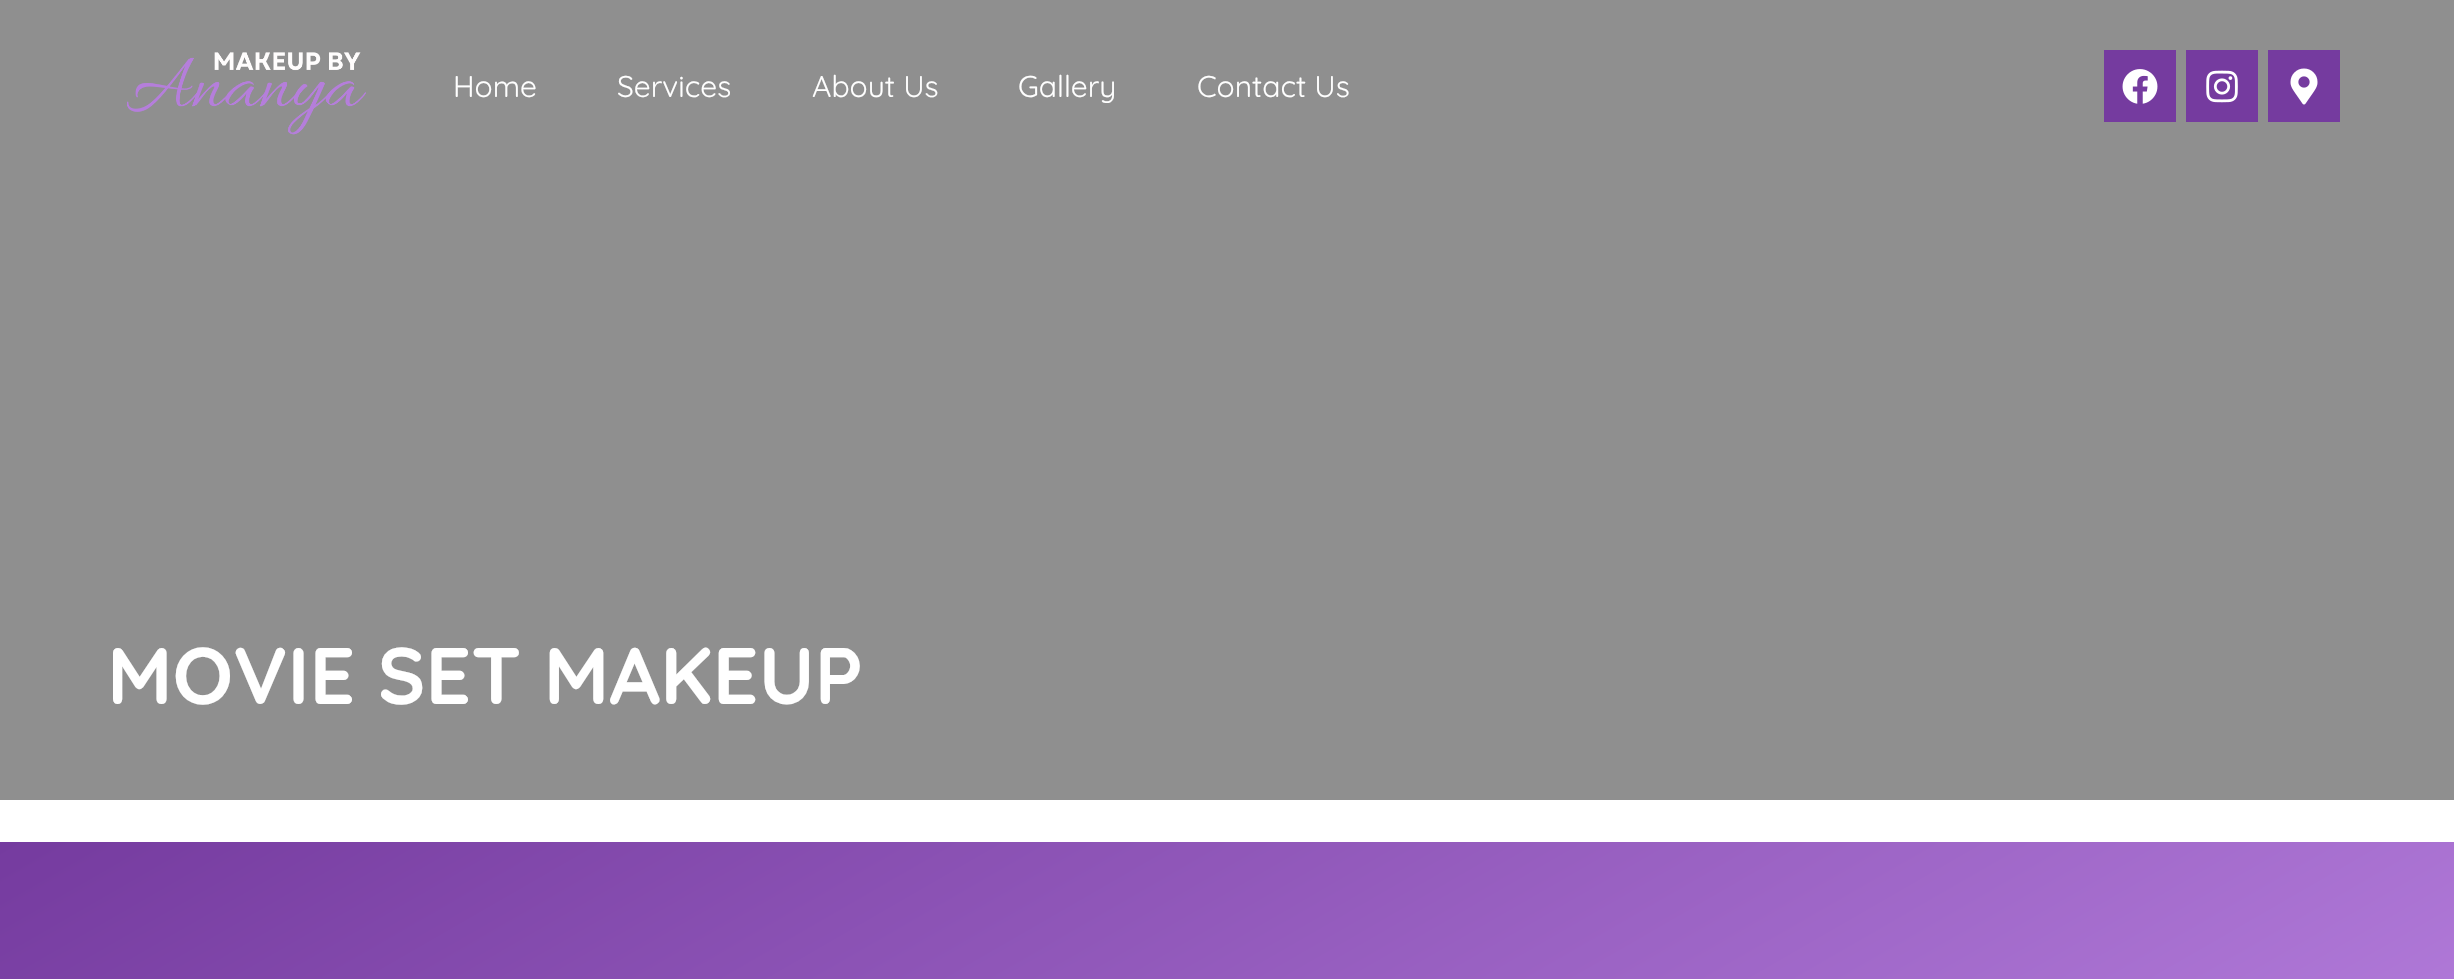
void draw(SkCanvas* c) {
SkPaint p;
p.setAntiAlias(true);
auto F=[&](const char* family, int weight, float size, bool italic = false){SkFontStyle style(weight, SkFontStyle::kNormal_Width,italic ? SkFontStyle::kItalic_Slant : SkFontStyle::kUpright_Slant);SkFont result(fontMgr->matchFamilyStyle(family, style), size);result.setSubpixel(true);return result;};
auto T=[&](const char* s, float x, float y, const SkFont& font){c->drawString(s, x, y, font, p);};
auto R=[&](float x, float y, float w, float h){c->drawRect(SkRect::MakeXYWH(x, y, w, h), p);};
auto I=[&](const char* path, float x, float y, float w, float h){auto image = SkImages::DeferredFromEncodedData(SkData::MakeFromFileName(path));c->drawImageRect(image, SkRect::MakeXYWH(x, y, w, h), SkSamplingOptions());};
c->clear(0xffffffff);
p.setColor(0xff8f8f8f);
R(0,0,2454,800);
I("1.png",127,52,239,83);
auto f1 = F("Quicksand",400,30);
p.setColor(0xffffffff);
T("Home",453,97,f1);
T("Services",617,97,f1);
T("About Us",812,97,f1);
T("Gallery",1018,97,f1);
T("Contact Us",1197,97,f1);
p.setColor(0xff753b9f);
R(2104,50,72,72);
I("2.png",2122,69,36,35);
R(2186,50,72,72);
I("3.png",2206,70,32,33);
R(2268,50,72,72);
I("4.png",2290,68,28,37);
auto f2 = F("Quicksand",700,80);
p.setColor(0xffffffff);
T("MOVIE SET MAKEUP",107,704,f2);
{
const SkColor colors[] = {0xff753b9f,0xffb57edd};
const float stops[] = {0,1};
const SkPoint ends[] = {{854,349}, {1600,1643}};
p.setShader(SkGradientShader::MakeLinear(ends, colors, stops, 2, SkTileMode::kClamp));
p.setAlpha(255);
}
R(0,842,2454,137);
}
